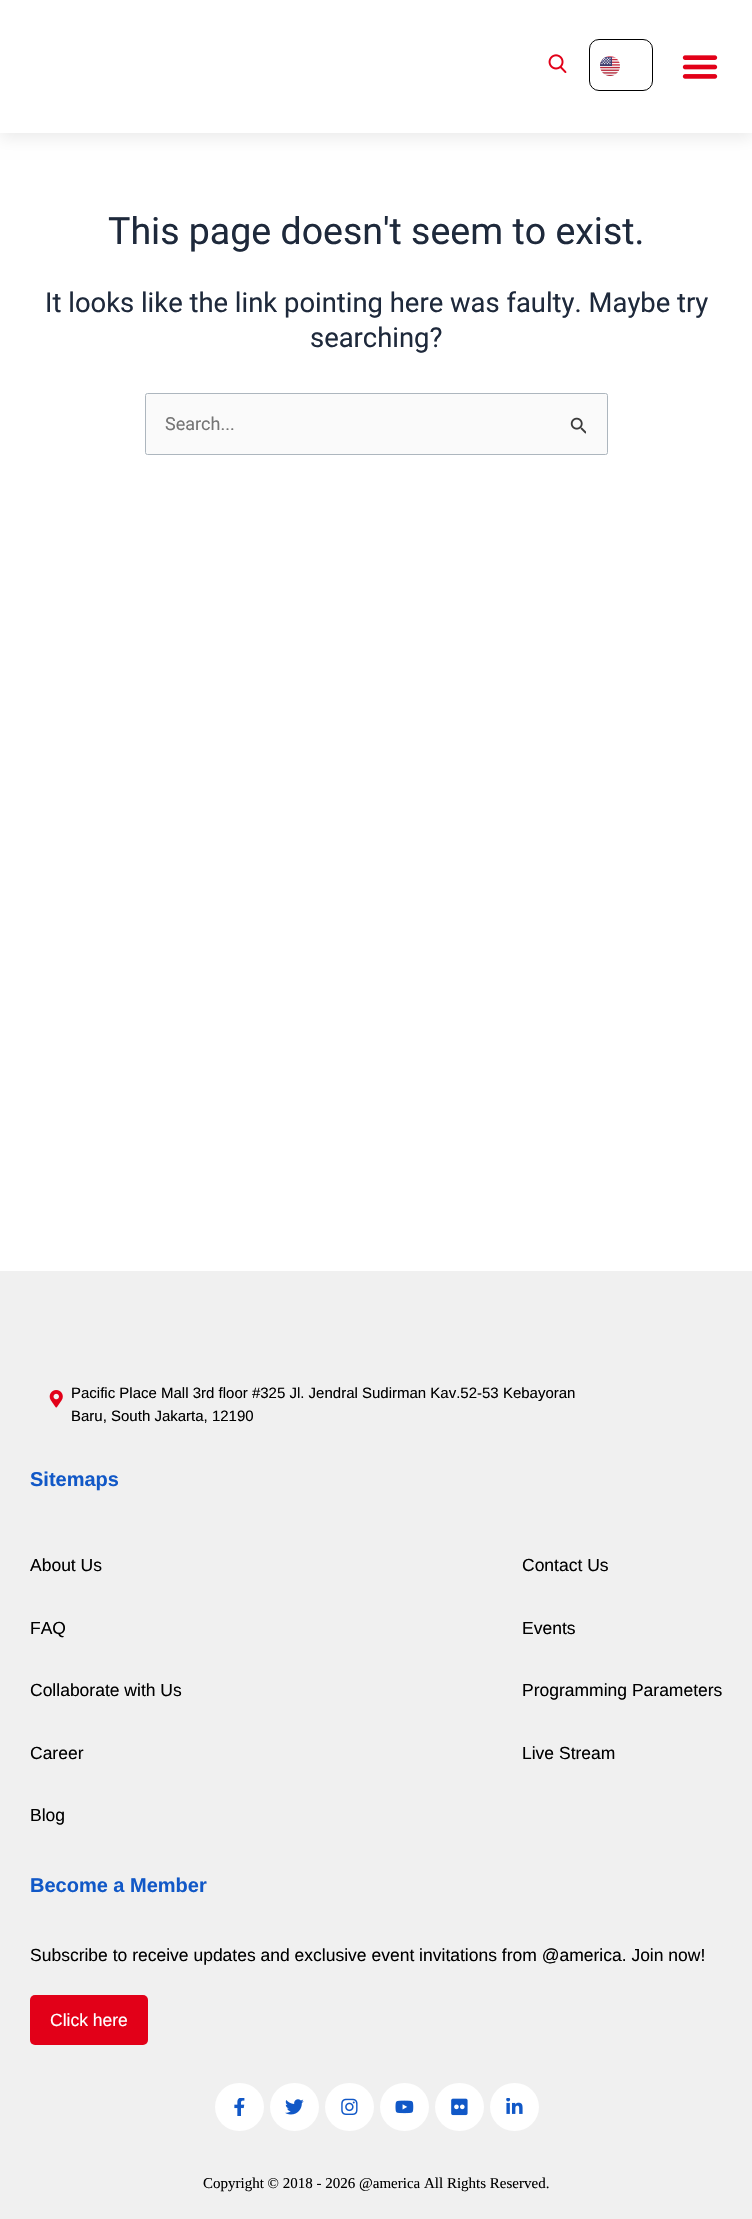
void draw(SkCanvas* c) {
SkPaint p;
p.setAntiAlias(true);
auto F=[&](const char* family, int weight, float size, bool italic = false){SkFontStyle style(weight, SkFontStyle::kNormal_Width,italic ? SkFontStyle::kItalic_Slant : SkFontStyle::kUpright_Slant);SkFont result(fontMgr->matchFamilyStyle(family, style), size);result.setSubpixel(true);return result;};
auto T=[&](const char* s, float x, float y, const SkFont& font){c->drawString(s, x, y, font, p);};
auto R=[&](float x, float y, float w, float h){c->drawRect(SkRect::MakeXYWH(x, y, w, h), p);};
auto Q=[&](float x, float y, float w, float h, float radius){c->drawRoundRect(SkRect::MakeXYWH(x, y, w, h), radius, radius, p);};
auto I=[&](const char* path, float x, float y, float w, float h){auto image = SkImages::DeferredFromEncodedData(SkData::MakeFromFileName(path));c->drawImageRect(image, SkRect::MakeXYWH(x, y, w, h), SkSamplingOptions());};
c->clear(0xffffffff);
p.setColor(0x14000000);
p.setMaskFilter(SkMaskFilter::MakeBlur(kNormal_SkBlurStyle, 7.5));
c->drawRect(SkRect::MakeXYWH(0,5,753,133),p);
p.setMaskFilter(nullptr);
p.setColor(0xffffffff);
R(0,0,752,133);
I("1.png",548,54,19,19);
p.setStroke(true);
p.setStrokeWidth(1);
p.setColor(0xff000000);
c->drawRoundRect(SkRect::MakeXYWH(589.5,39.5,63,51),9.5,9.5,p);
I("2.png",600,56,20,20);
I("3.png",682,55,36,24);
auto f1 = F("Roboto",400,37.5);
p.setStroke(false);
p.setColor(0xff1e293b);
T("This page doesn't seem to exist.",108,244,f1);
auto f2 = F("Roboto",400,27.4);
T("It looks like the link pointing here was faulty. Maybe try",45,312,f2);
T("searching?",310,347,f2);
p.setColor(0xfffafafa);
c->drawRoundRect(SkRect::MakeXYWH(145.5,393.5,462,61),2,2,p);
p.setStroke(true);
p.setColor(0xffadb6be);
c->drawRoundRect(SkRect::MakeXYWH(145.5,393.5,462,61),2,2,p);
auto f3 = F("Roboto",400,18);
p.setStroke(false);
p.setColor(0xff757575);
T("Search...",165,430,f3);
I("4.png",570,417,16,17);
p.setColor(0xfff0f0f0);
R(0,1271,752,948);
I("5.png",49,1390,14,18);
auto f4 = F("Liberation Sans",400,15);
p.setColor(0xff000000);
T("Pacific Place Mall 3rd floor #325 Jl. Jendral Sudirman Kav.52-53 Kebayoran",71,1398,f4);
T("Baru, South Jakarta, 12190",71,1421,f4);
auto f5 = F("Liberation Sans",700,20);
p.setColor(0xff1158c7);
T("Sitemaps",30,1486,f5);
auto f6 = F("Liberation Sans",400,17.5);
p.setColor(0xff000000);
T("About Us",30,1571,f6);
T("FAQ",30,1634,f6);
T("Collaborate with Us",30,1696,f6);
T("Career",30,1759,f6);
T("Blog",30,1821,f6);
T("Contact Us",522,1571,f6);
T("Events",522,1634,f6);
T("Programming Parameters",522,1696,f6);
T("Live Stream",522,1759,f6);
p.setColor(0xff1158c7);
T("Become a Member",30,1892,f5);
p.setColor(0xff000000);
T("Subscribe to receive updates and exclusive event invitations from @america. Join now!",30,1961,f6);
p.setColor(0xffe20018);
Q(30,1995,118,50,5);
p.setColor(0xffffffff);
T("Click here",50,2026,f6);
Q(215,2083,49,48,24);
I("6.png",234,2098,11,18);
Q(270,2083,49,48,24);
I("7.png",285,2099,19,16);
Q(325,2083,49,48,24);
I("8.png",341,2098,17,17);
Q(380,2083,49,48,24);
I("9.png",395,2100,19,14);
Q(435,2083,49,48,24);
I("10.png",451,2098,17,18);
Q(490,2083,49,48,24);
I("11.png",506,2098,17,16);
auto f7 = F("Liberation Serif",400,15);
p.setColor(0xff000000);
T("Copyright © 2018 - 2026 @america All Rights Reserved.",203,2188,f7);
}
